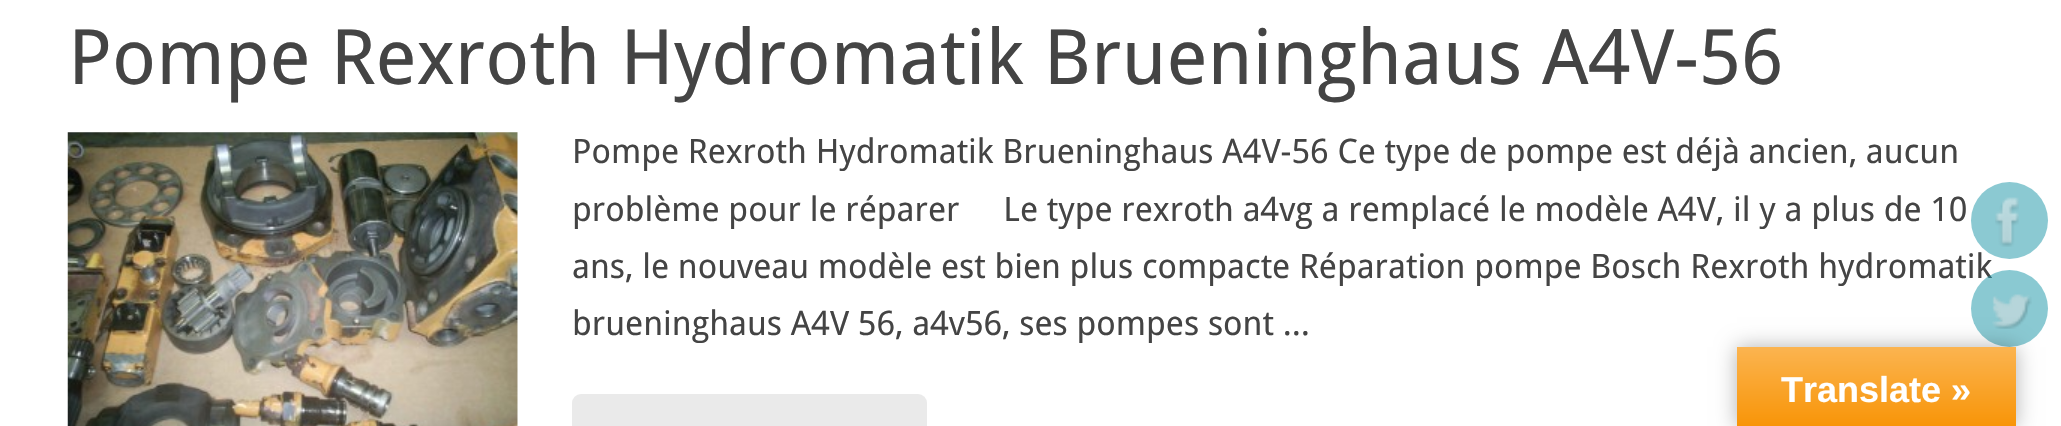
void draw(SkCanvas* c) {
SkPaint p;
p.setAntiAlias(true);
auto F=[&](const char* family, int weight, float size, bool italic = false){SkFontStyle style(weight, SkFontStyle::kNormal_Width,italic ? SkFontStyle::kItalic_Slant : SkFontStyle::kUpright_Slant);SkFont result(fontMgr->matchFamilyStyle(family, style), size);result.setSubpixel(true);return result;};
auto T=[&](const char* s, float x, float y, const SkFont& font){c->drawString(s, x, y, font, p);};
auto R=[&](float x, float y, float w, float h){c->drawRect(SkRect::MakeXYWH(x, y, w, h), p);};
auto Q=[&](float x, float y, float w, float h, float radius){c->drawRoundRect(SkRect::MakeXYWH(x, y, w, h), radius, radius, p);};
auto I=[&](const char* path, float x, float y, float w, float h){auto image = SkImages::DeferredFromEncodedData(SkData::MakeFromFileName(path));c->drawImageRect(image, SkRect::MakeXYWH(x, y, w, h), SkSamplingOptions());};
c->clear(0xffffffff);
auto f1 = F("Droid Sans",400,76.5);
p.setColor(0xff444444);
T("Pompe Rexroth Hydromatik Brueninghaus A4V-56",68,84,f1);
I("1.png",67,132,451,294);
auto f2 = F("Droid Sans",400,33.75);
T("Pompe Rexroth Hydromatik Brueninghaus A4V-56 Ce type de pompe est déjà ancien, aucun",572,163,f2);
T("problème pour le réparer     Le type rexroth a4vg a remplacé le modèle A4V, il y a plus de 10",572,221,f2);
T("ans, le nouveau modèle est bien plus compacte Réparation pompe Bosch Rexroth hydromatik",572,278,f2);
T("brueninghaus A4V 56, a4v56, ses pompes sont …",572,335,f2);
p.setColor(0xffeaeaea);
Q(572,394,355,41,9);
p.setColor(0xff8bc9d2);
c->drawCircle(2009.5,220.5,38.5,p);
I("2.png",1995,197,24,50);
p.setColor(0x801693a5);
c->drawCircle(2009.5,308.5,38.5,p);
I("3.png",1992,294,40,35);
p.setColor(0x4d000000);
p.setMaskFilter(SkMaskFilter::MakeBlur(kNormal_SkBlurStyle, 10));
c->drawRect(SkRect::MakeXYWH(1737,347,279,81),p);
p.setMaskFilter(nullptr);
{
const SkColor colors[] = {0xfffbb450,0xfff89406};
const float stops[] = {0,1};
const SkPoint ends[] = {{1877,347}, {1877,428}};
p.setShader(SkGradientShader::MakeLinear(ends, colors, stops, 2, SkTileMode::kClamp));
p.setAlpha(255);
}
R(1737,347,279,79);
auto f3 = F("Liberation Sans",700,36);
p.setShader(nullptr);
p.setColor(0xffffffff);
T("Translate »",1781,402,f3);
}
